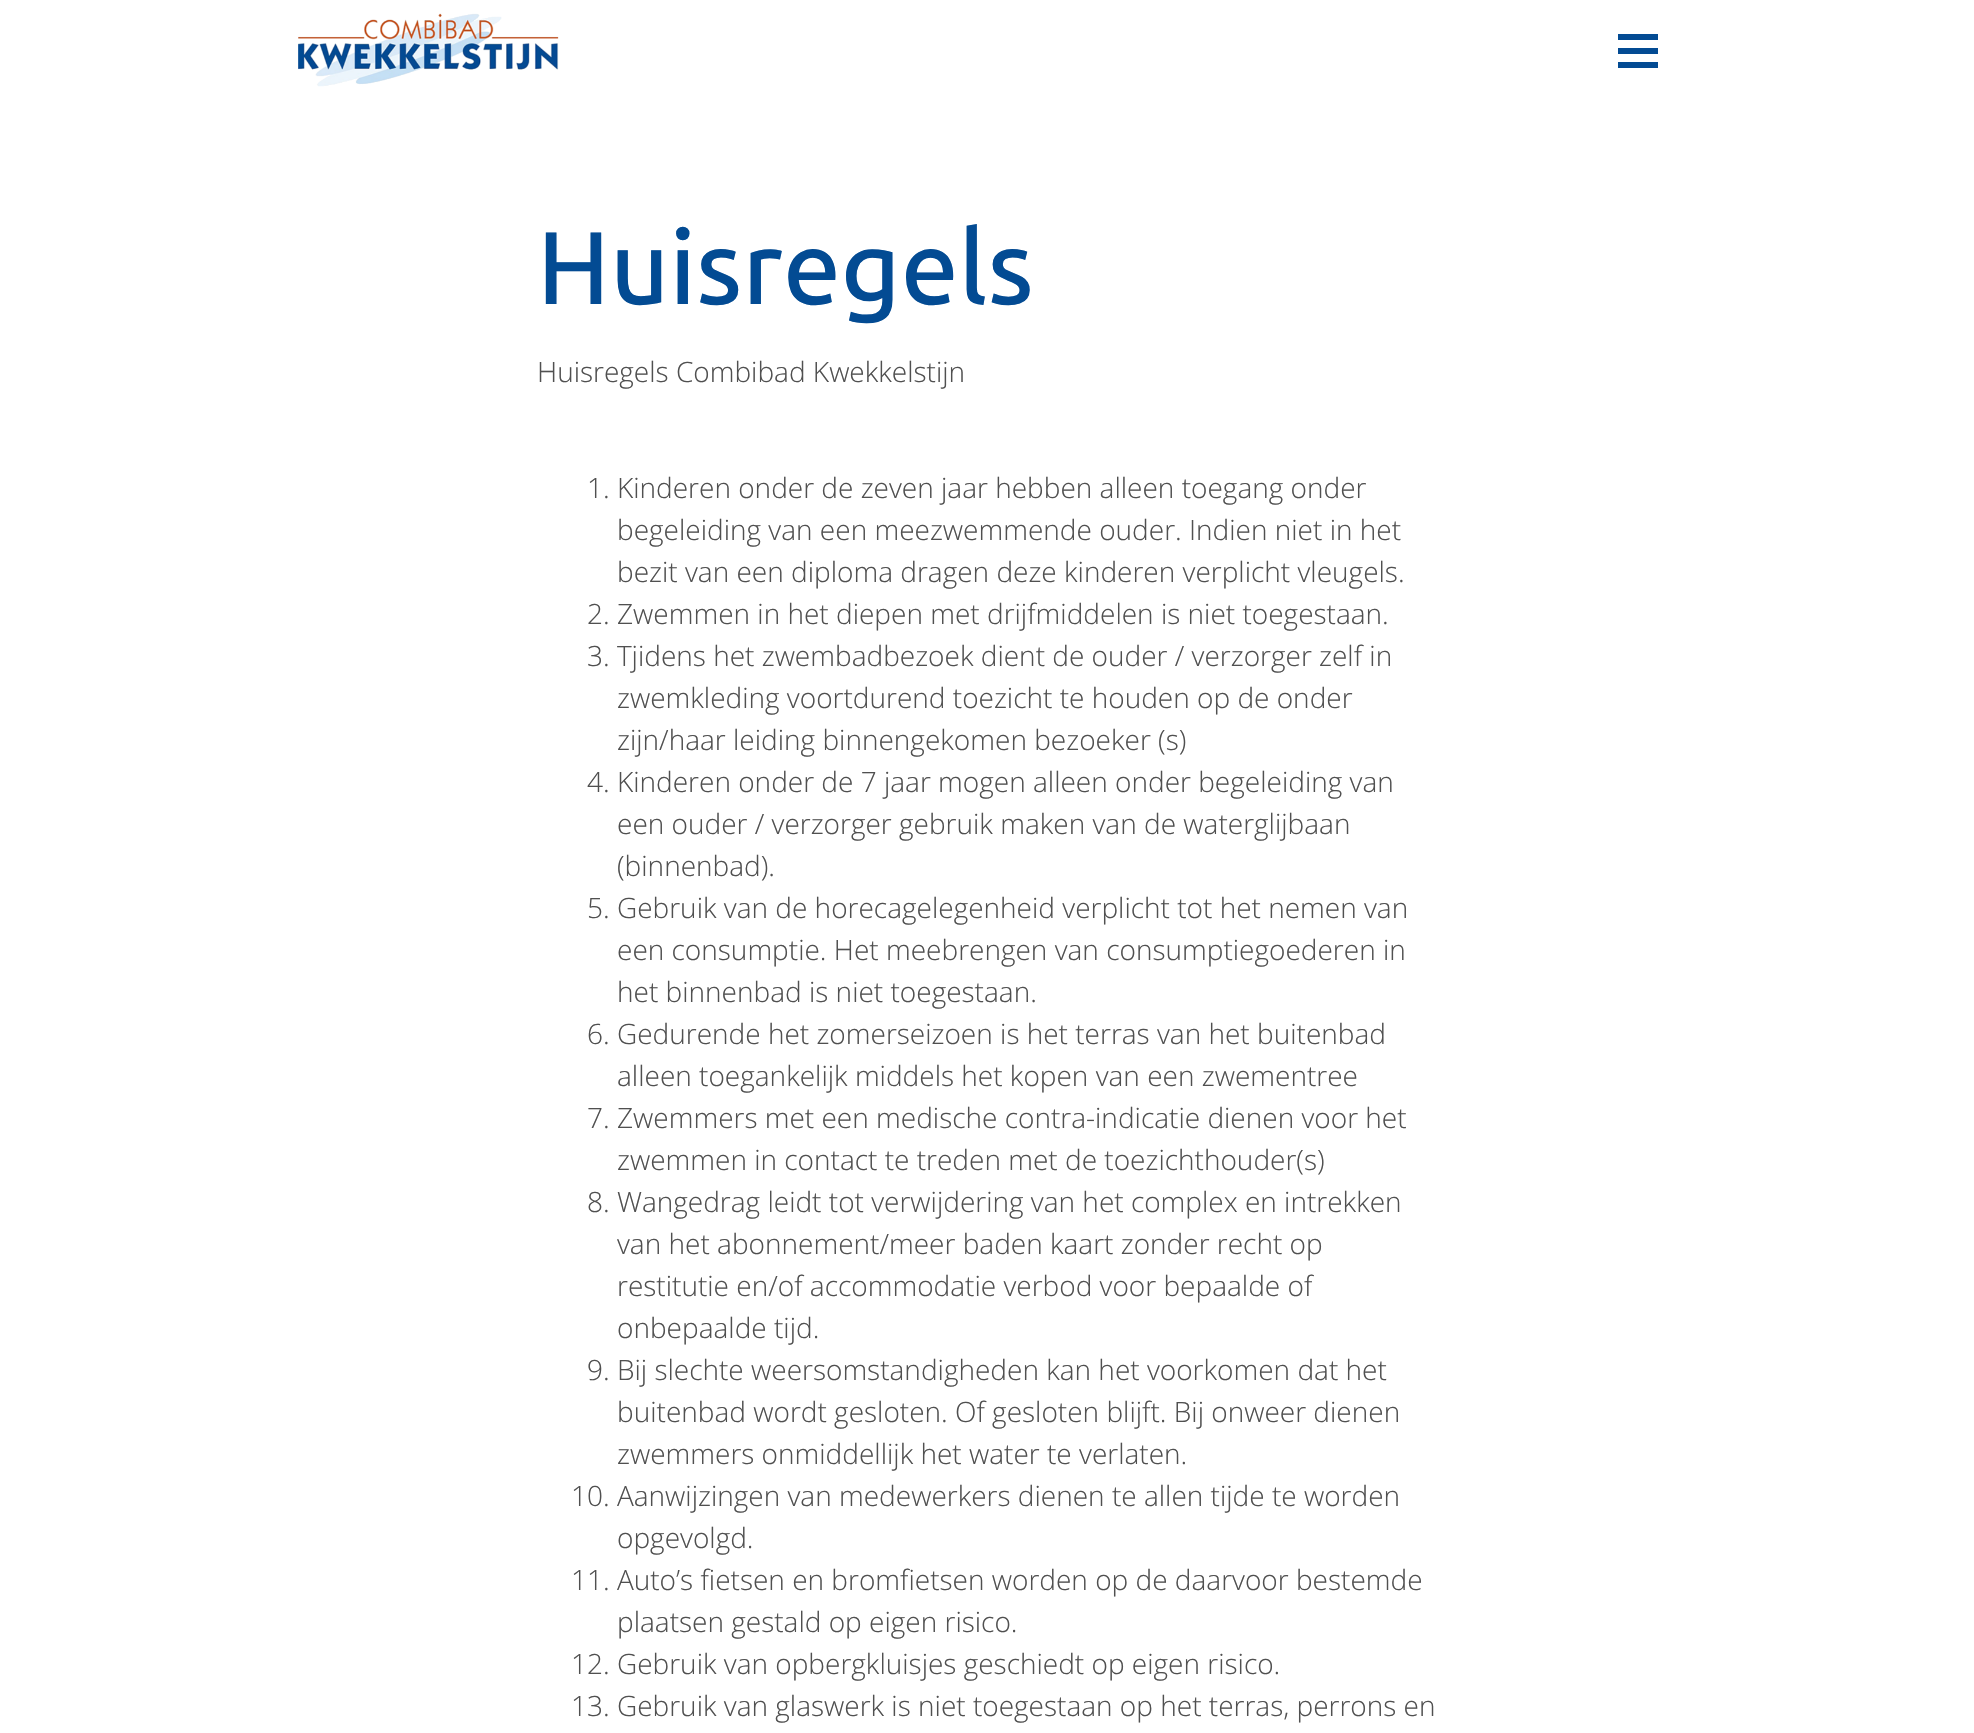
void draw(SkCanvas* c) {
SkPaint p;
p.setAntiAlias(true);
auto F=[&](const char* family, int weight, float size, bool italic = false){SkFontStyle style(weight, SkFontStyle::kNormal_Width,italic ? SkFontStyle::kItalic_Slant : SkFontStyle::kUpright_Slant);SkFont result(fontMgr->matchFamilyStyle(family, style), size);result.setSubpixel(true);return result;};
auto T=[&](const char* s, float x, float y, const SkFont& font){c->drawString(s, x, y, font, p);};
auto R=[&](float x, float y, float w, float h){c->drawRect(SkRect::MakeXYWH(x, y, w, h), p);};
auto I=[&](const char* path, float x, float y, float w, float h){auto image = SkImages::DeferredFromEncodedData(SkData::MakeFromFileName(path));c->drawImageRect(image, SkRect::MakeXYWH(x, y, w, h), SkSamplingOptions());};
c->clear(0xffffffff);
I("1.png",298,13,261,74);
p.setColor(0xff034b93);
R(1618,48,40,6);
R(1618,34,40,6);
R(1618,62,40,6);
auto f1 = F("Ubuntu",500,103);
T("Huisregels",537,304,f1);
auto f2 = F("Open Sans",300,28);
p.setColor(0xff505050);
T("Huisregels Combibad Kwekkelstijn",537,382,f2);
T("1. Kinderen onder de zeven jaar hebben alleen toegang onder",587,498,f2);
T("begeleiding van een meezwemmende ouder. Indien niet in het",617,540,f2);
T("bezit van een diploma dragen deze kinderen verplicht vleugels.",617,582,f2);
T("2. Zwemmen in het diepen met drijfmiddelen is niet toegestaan.",587,624,f2);
T("3. Tjidens het zwembadbezoek dient de ouder / verzorger zelf in",587,666,f2);
T("zwemkleding voortdurend toezicht te houden op de onder",617,708,f2);
T("zijn/haar leiding binnengekomen bezoeker (s)",617,750,f2);
T("4. Kinderen onder de 7 jaar mogen alleen onder begeleiding van",587,792,f2);
T("een ouder / verzorger gebruik maken van de waterglijbaan",617,834,f2);
T("(binnenbad).",617,876,f2);
T("5. Gebruik van de horecagelegenheid verplicht tot het nemen van",587,918,f2);
T("een consumptie. Het meebrengen van consumptiegoederen in",617,960,f2);
T("het binnenbad is niet toegestaan.",617,1002,f2);
T("6. Gedurende het zomerseizoen is het terras van het buitenbad",587,1044,f2);
T("alleen toegankelijk middels het kopen van een zwementree",617,1086,f2);
T("7. Zwemmers met een medische contra-indicatie dienen voor het",587,1128,f2);
T("zwemmen in contact te treden met de toezichthouder(s)",617,1170,f2);
T("8. Wangedrag leidt tot verwijdering van het complex en intrekken",587,1212,f2);
T("van het abonnement/meer baden kaart zonder recht op",617,1254,f2);
T("restitutie en/of accommodatie verbod voor bepaalde of",617,1296,f2);
T("onbepaalde tijd.",617,1338,f2);
T("9. Bij slechte weersomstandigheden kan het voorkomen dat het",587,1380,f2);
T("buitenbad wordt gesloten. Of gesloten blijft. Bij onweer dienen",617,1422,f2);
T("zwemmers onmiddellijk het water te verlaten.",617,1464,f2);
T("10. Aanwijzingen van medewerkers dienen te allen tijde te worden",571,1506,f2);
T("opgevolgd.",617,1548,f2);
T("11. Auto’s fietsen en bromfietsen worden op de daarvoor bestemde",571,1590,f2);
T("plaatsen gestald op eigen risico.",617,1632,f2);
T("12. Gebruik van opbergkluisjes geschiedt op eigen risico.",571,1674,f2);
T("13. Gebruik van glaswerk is niet toegestaan op het terras, perrons en",571,1716,f2);
}
